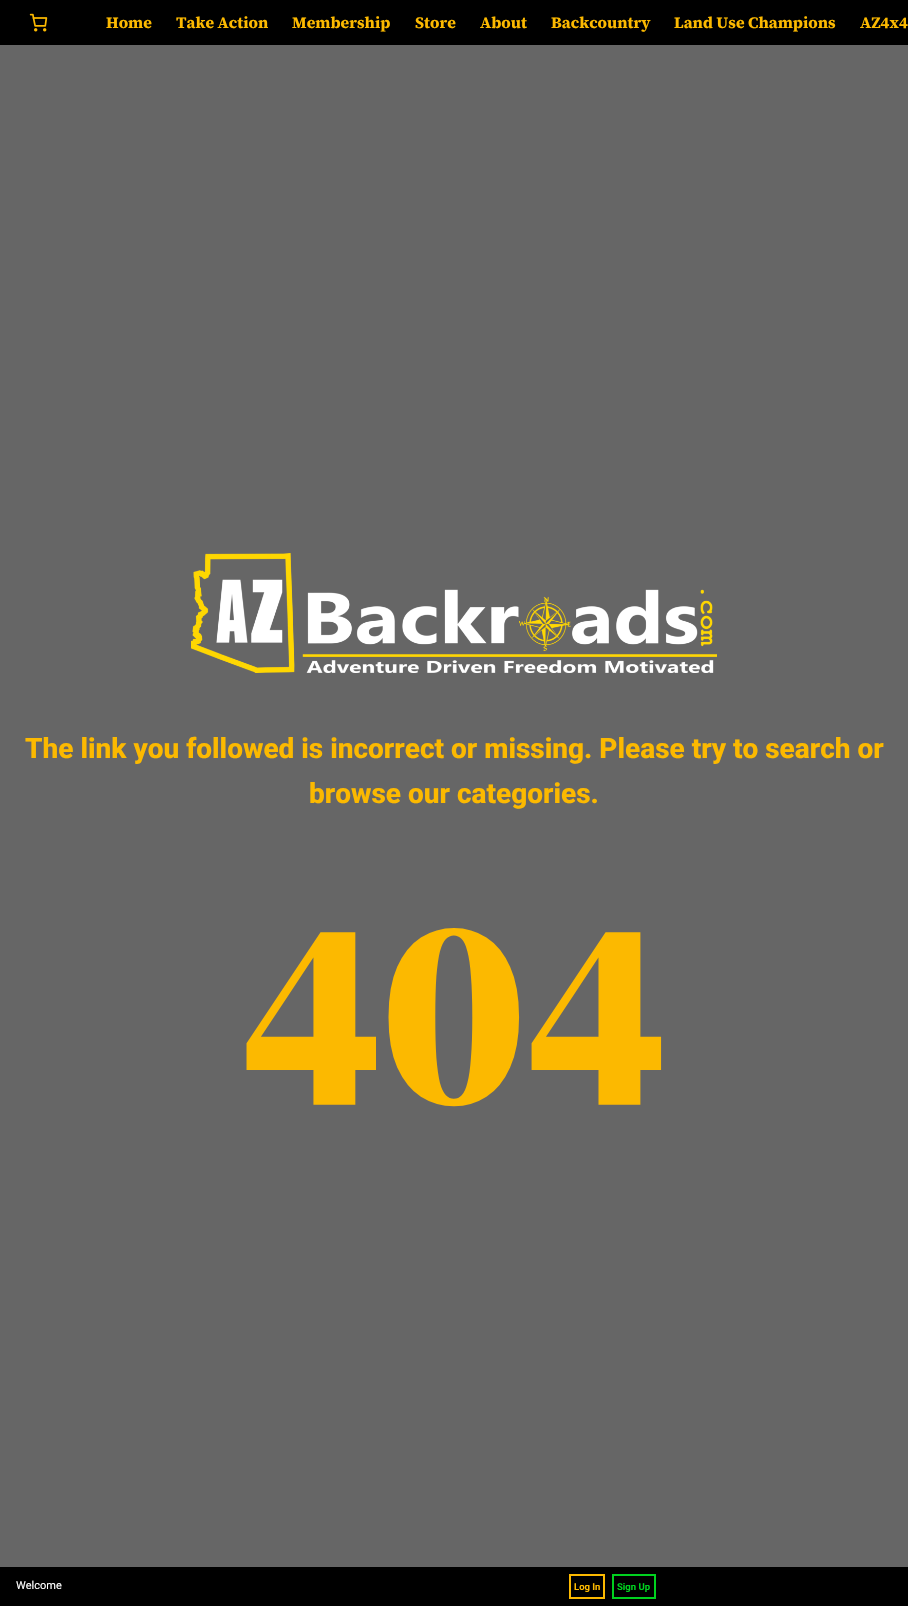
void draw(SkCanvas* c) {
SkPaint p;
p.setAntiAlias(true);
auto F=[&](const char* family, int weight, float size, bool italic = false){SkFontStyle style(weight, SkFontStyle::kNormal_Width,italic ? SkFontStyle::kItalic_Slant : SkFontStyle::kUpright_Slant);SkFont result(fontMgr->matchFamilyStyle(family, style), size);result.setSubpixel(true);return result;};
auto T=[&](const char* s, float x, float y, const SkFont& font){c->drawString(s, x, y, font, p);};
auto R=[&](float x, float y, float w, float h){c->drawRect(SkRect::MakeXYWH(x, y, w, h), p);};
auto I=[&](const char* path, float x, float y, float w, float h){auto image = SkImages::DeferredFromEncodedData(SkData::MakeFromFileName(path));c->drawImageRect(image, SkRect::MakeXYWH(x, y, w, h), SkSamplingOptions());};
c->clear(0xff666666);
p.setColor(0xff000000);
R(0,0,908,45);
I("1.png",29,13,19,19);
auto f1 = F("Source Serif 4",700,16);
p.setColor(0xfffcb900);
T("Home",106,28,f1);
T("Take Action",176,28,f1);
T("Membership",292,28,f1);
T("Store",415,28,f1);
T("About",480,28,f1);
T("Backcountry",551,28,f1);
T("Land Use Champions",674,28,f1);
T("AZ4x4",860,28,f1);
I("2.png",191,553,526,120);
auto f2 = F("Roboto",800,28);
T("The link you followed is incorrect or missing. Please try to search or",25,758,f2);
T("browse our categories.",309,803,f2);
auto f3 = F("Source Serif 4",900,272);
T("404",240,1102,f3);
p.setColor(0xff000000);
R(0,1567,908,39);
auto f4 = F("Roboto",400,11);
p.setColor(0xffffffff);
T("Welcome",16,1589,f4);
p.setStroke(true);
p.setStrokeWidth(2);
p.setColor(0xfffcb900);
c->drawRect(SkRect::MakeXYWH(570,1575,34,23),p);
auto f5 = F("Roboto",700,9.5);
p.setStroke(false);
T("Log In",574,1590,f5);
p.setStroke(true);
p.setColor(0xff00d11f);
c->drawRect(SkRect::MakeXYWH(613,1575,42,23),p);
p.setStroke(false);
T("Sign Up",617,1590,f5);
}
